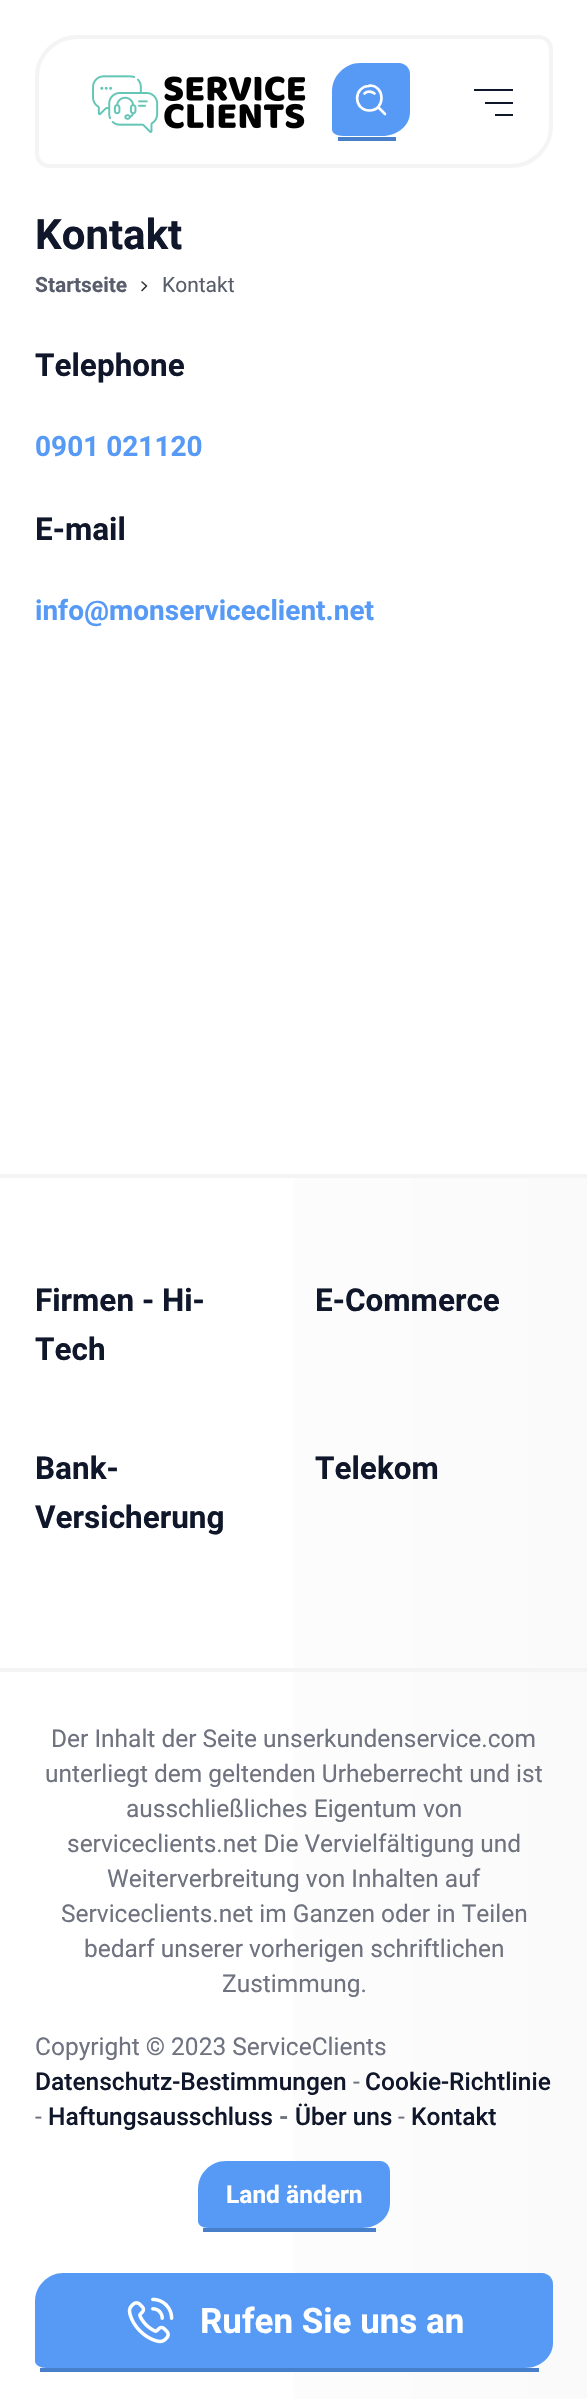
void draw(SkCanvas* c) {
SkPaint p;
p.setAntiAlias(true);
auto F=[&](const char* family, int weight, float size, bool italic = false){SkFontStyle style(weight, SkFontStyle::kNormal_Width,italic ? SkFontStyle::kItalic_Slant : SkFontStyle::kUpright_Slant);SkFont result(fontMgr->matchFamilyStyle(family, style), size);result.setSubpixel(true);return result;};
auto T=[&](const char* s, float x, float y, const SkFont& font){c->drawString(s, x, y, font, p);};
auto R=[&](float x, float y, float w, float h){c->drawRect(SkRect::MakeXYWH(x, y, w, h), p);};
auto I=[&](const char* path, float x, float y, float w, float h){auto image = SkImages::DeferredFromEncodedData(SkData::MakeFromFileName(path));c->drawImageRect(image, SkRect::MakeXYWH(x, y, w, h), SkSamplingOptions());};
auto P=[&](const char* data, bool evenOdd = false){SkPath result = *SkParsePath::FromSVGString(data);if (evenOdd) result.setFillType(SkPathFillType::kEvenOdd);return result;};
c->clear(0xffffffff);
p.setStroke(true);
p.setStrokeWidth(4);
p.setColor(0xfff4f4f4);
c->drawPath(P("M77 37h462c6.5 0 12 5.5 12 12v77c0 22-18 40-40 40h-462c-6.5 0-12-5.5-12-12v-77c0-22 18-40 40-40z"),p);
I("1.png",92,75,214,58);
p.setStroke(false);
p.setColor(0xff569af6);
c->drawPath(P("M360 63h39c6 0 11 5 11 11v38c0 14-13 24-28 24h-39c-6 0-11-3-11-6v-39c0-15 13-28 28-28z"),p);
p.setColor(0xff477fcb);
R(338,137,58,4);
p.setStroke(true);
p.setStrokeWidth(2.6);
p.setStrokeCap(SkPaint::kRound_Cap);
p.setStrokeJoin(SkPaint::kRound_Join);
p.setColor(0xffffffff);
c->drawPath(P("M369.5 86c-16.5 0-16.5 24.5 0 24.5c16 0 16-25 0-25zm-5 7.5c2.5-2.5 7-2.5 10 0m10.5 20.5l-7-7"),p);
p.setStroke(false);
p.setColor(0xff10172b);
R(485,102,28,2);
R(474,89,39,2);
R(495,114,18,2);
auto f1 = F("Roboto",700,42);
T("Kontakt",35,249,f1);
auto f2 = F("Roboto",700,21);
p.setColor(0xff585d6b);
T("Startseite",35,292,f2);
p.setStroke(true);
p.setStrokeWidth(1.6);
p.setColor(0xff323232);
c->drawPath(P("M142 290.5l4.5-4.5l-4.5-4"),p);
auto f3 = F("Roboto",400,21);
p.setStroke(false);
p.setColor(0xff585d6b);
T("Kontakt",162,292,f3);
auto f4 = F("Roboto",700,31.5);
p.setColor(0xff10172b);
T("Telephone",35,376,f4);
auto f5 = F("Roboto",700,28);
p.setColor(0xff569af6);
T("0901 021120",35,456,f5);
p.setColor(0xff10172b);
T("E-mail",35,540,f4);
p.setColor(0xff569af6);
T("info@monserviceclient.net",35,620,f5);
{
const SkColor colors[] = {0xffffffff,0xfffafafa};
const float stops[] = {0,1};
const SkPoint ends[] = {{0,1423}, {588,1423}};
p.setShader(SkGradientShader::MakeLinear(ends, colors, stops, 2, SkTileMode::kClamp));
p.setAlpha(255);
}
R(294,1178,293,490);
p.setShader(nullptr);
p.setColor(0xfff4f4f4);
R(0,1174,587,4);
p.setColor(0xff10172b);
T("Firmen - Hi-",35,1311,f4);
T("Tech",35,1360,f4);
T("E-Commerce",315,1311,f4);
T("Bank-",35,1479,f4);
T("Versicherung",35,1528,f4);
T("Telekom",315,1479,f4);
{
const SkColor colors[] = {0xffffffff,0xfffafafa};
const float stops[] = {0,1};
const SkPoint ends[] = {{0,2035}, {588,2035}};
p.setShader(SkGradientShader::MakeLinear(ends, colors, stops, 2, SkTileMode::kClamp));
p.setAlpha(255);
}
R(294,1672,293,727);
p.setShader(nullptr);
p.setColor(0xfff4f4f4);
R(0,1668,587,4);
auto f6 = F("Roboto",400,24.5);
p.setColor(0xff6f737f);
T("Der Inhalt der Seite unserkundenservice.com",51,1747,f6);
T("unterliegt dem geltenden Urheberrecht und ist",45,1782,f6);
T("ausschließliches Eigentum von",126,1817,f6);
T("serviceclients.net Die Vervielfältigung und",67,1852,f6);
T("Weiterverbreitung von Inhalten auf",107,1887,f6);
T("Serviceclients.net im Ganzen oder in Teilen",61,1922,f6);
T("bedarf unserer vorherigen schriftlichen",84,1957,f6);
T("Zustimmung.",222,1992,f6);
T("Copyright © 2023 ServiceClients",35,2055,f6);
auto f7 = F("Roboto",500,24.5);
p.setColor(0xff10172b);
T("Datenschutz-Bestimmungen",35,2090,f7);
p.setColor(0xff6f737f);
T("-",353,2090,f6);
p.setColor(0xff10172b);
T("Cookie-Richtlinie",365,2090,f7);
p.setColor(0xff6f737f);
T("-",35,2125,f6);
p.setColor(0xff10172b);
T("Haftungsausschluss",48,2125,f7);
auto f8 = F("Roboto",700,24.5);
p.setColor(0xff6f737f);
T("-",279,2125,f8);
p.setColor(0xff10172b);
T("Über uns",295,2125,f7);
p.setColor(0xff6f737f);
T("-",398,2125,f6);
p.setColor(0xff10172b);
T("Kontakt",411,2125,f7);
p.setColor(0xff569af6);
c->drawPath(P("M226 2161h154c6 0 10 5 10 11v31c0 14-12 25-28 25h-154c-6 0-10-3-10-7v-32c0-15 12-28 28-28z"),p);
p.setColor(0xff477fcb);
R(203,2228,173,4);
p.setColor(0xffffffff);
T("Land ändern",226,2203,f8);
p.setColor(0xff569af6);
c->drawPath(P("M63 2273h479c6 0 11 5 11 11v59c0 14-13 25-28 25h-479c-6 0-11-3-11-7v-60c0-15 13-28 28-28z"),p);
p.setColor(0xff477fcb);
R(40,2368,499,4);
I("2.png",127,2297,47,47);
auto f9 = F("Roboto",700,35);
p.setColor(0xffffffff);
T("Rufen Sie uns an",200,2333,f9);
}
